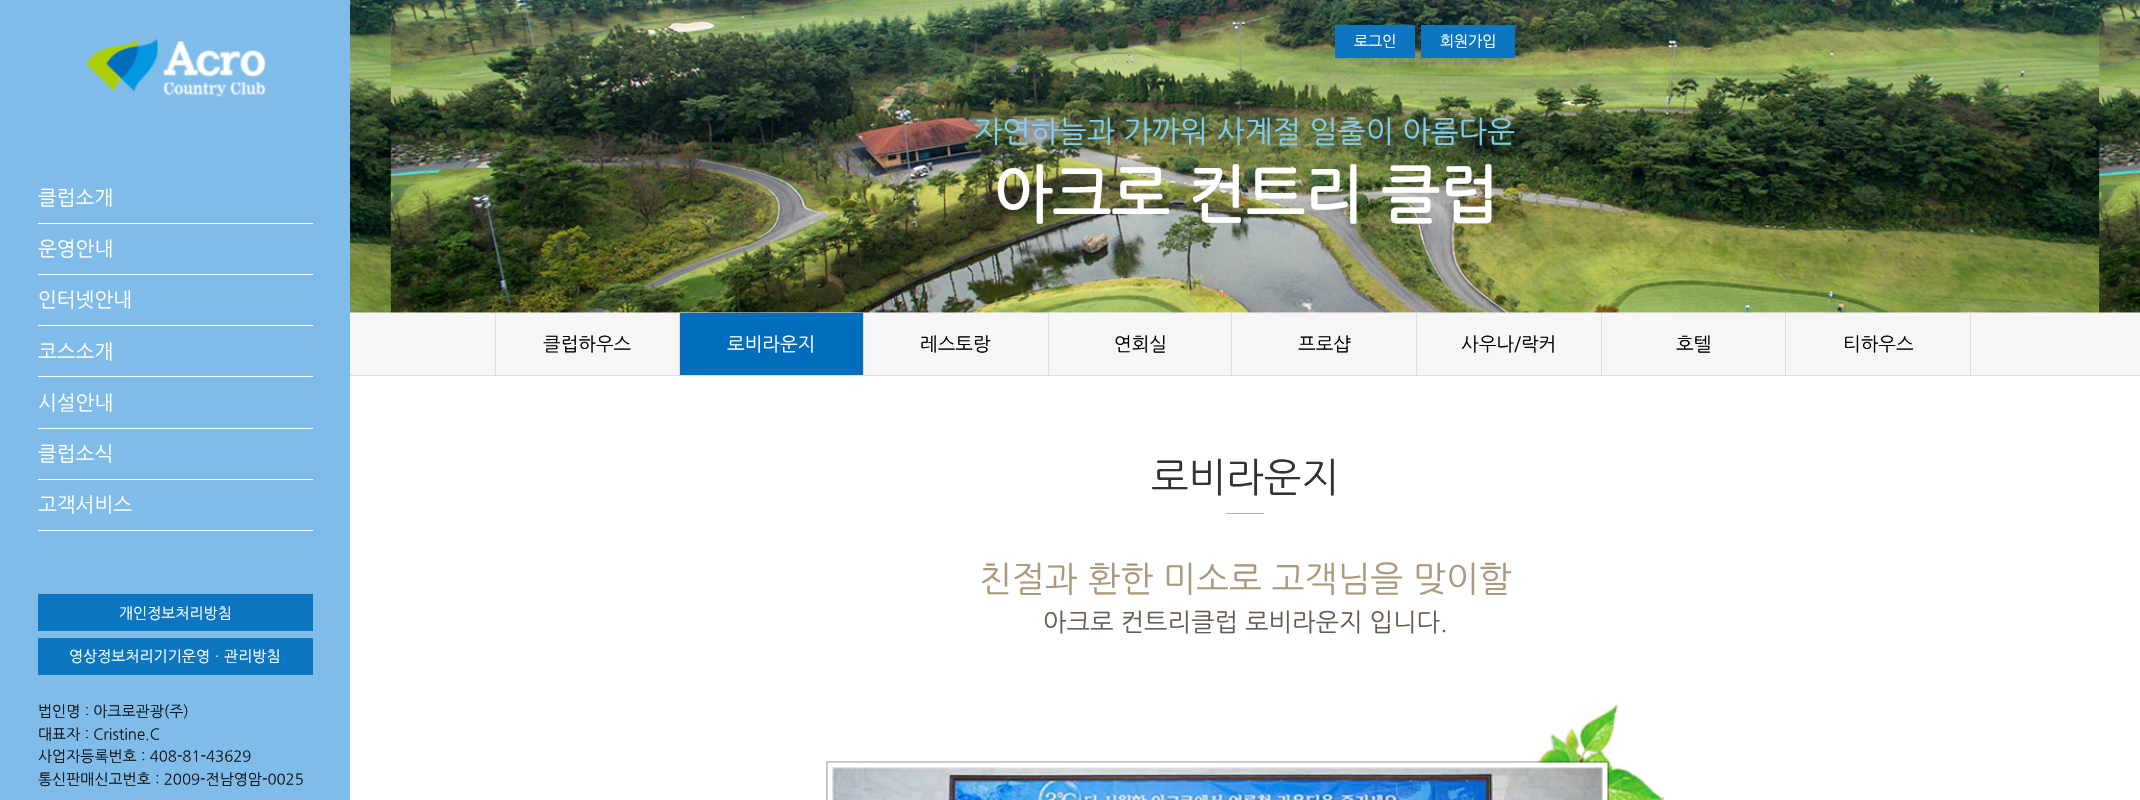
void draw(SkCanvas* c) {
SkPaint p;
p.setAntiAlias(true);
auto F=[&](const char* family, int weight, float size, bool italic = false){SkFontStyle style(weight, SkFontStyle::kNormal_Width,italic ? SkFontStyle::kItalic_Slant : SkFontStyle::kUpright_Slant);SkFont result(fontMgr->matchFamilyStyle(family, style), size);result.setSubpixel(true);return result;};
auto T=[&](const char* s, float x, float y, const SkFont& font){c->drawString(s, x, y, font, p);};
auto R=[&](float x, float y, float w, float h){c->drawRect(SkRect::MakeXYWH(x, y, w, h), p);};
auto I=[&](const char* path, float x, float y, float w, float h){auto image = SkImages::DeferredFromEncodedData(SkData::MakeFromFileName(path));c->drawImageRect(image, SkRect::MakeXYWH(x, y, w, h), SkSamplingOptions());};
c->clear(0xffffffff);
p.setColor(0xff7fbcea);
R(0,0,350,800);
I("1.png",86,38,180,59);
p.setColor(0xffffffff);
R(38,223,275,1);
auto f1 = F("NanumGothic",400,20);
T("클럽소개",38,204,f1);
R(38,274,275,1);
T("운영안내",38,255,f1);
R(38,325,275,1);
T("인터넷안내",38,306,f1);
R(38,376,275,1);
T("코스소개",38,358,f1);
R(38,428,275,1);
T("시설안내",38,409,f1);
R(38,479,275,1);
T("클럽소식",38,460,f1);
R(38,530,275,1);
T("고객서비스",38,511,f1);
p.setColor(0xff0c76c1);
R(38,594,275,37);
auto f2 = F("NanumGothic",400,15);
p.setColor(0xffffffff);
T("개인정보처리방침",119,618,f2);
p.setColor(0xff0c76c1);
R(38,638,275,37);
p.setColor(0xffffffff);
T("영상정보처리기기운영ㆍ관리방침",69,661,f2);
p.setColor(0xff111111);
T("법인명 : 아크로관광(주)",38,716,f2);
T("대표자 : Cristine.C",38,739,f2);
T("사업자등록번호 : 408-81-43629",38,761,f2);
T("통신판매신고번호 : 2009-전남영암-0025",38,784,f2);
I("2.png",350,0,1790,313);
p.setColor(0xff0c76c1);
R(1335,25,80,33);
p.setColor(0xffffffff);
T("로그인",1354,46,f2);
p.setColor(0xff0c76c1);
R(1421,25,94,33);
p.setColor(0xffffffff);
T("회원가입",1440,46,f2);
auto f3 = F("NanumGothic",400,30);
p.setColor(0xff84cdf2);
T("자연하늘과 가까워 사계절 일출이 아름다운",974,141,f3);
auto f4 = F("NanumGothic",700,62.5);
p.setColor(0xffffffff);
T("아크로 컨트리 클럽",993,215,f4);
p.setColor(0xfff6f6f6);
R(350,313,1790,62);
p.setColor(0xffdddddd);
R(350,375,1790,1);
R(679,313,1,62);
R(495,313,1,62);
auto f5 = F("NanumGothic",400,18.75);
p.setColor(0xff000000);
T("클럽하우스",543,350,f5);
p.setColor(0xff006ebc);
R(680,313,183,62);
p.setColor(0xffdddddd);
R(863,313,1,62);
p.setColor(0xffffffff);
T("로비라운지",727,350,f5);
p.setColor(0xffdddddd);
R(1048,313,1,62);
p.setColor(0xff000000);
T("레스토랑",920,350,f5);
p.setColor(0xffdddddd);
R(1231,313,1,62);
p.setColor(0xff000000);
T("연회실",1114,350,f5);
p.setColor(0xffdddddd);
R(1416,313,1,62);
p.setColor(0xff000000);
T("프로샵",1298,350,f5);
p.setColor(0xffdddddd);
R(1601,313,1,62);
p.setColor(0xff000000);
T("사우나/락커",1461,350,f5);
p.setColor(0xffdddddd);
R(1785,313,1,62);
p.setColor(0xff000000);
T("호텔",1676,350,f5);
p.setColor(0xffdddddd);
R(1970,313,1,62);
p.setColor(0xff000000);
T("티하우스",1843,350,f5);
auto f6 = F("NanumGothic",400,40);
p.setColor(0xff333333);
T("로비라운지",1151,490,f6);
p.setColor(0xffb2b2b2);
R(1226,513,38,1);
auto f7 = F("NanumGothic",400,35);
p.setColor(0xffab997d);
T("친절과 환한 미소로 고객님을 맞이할",979,590,f7);
auto f8 = F("NanumGothic",400,25);
p.setColor(0xff675a4f);
T("아크로 컨트리클럽 로비라운지 입니다.",1043,630,f8);
I("3.png",826,704,839,96);
}
